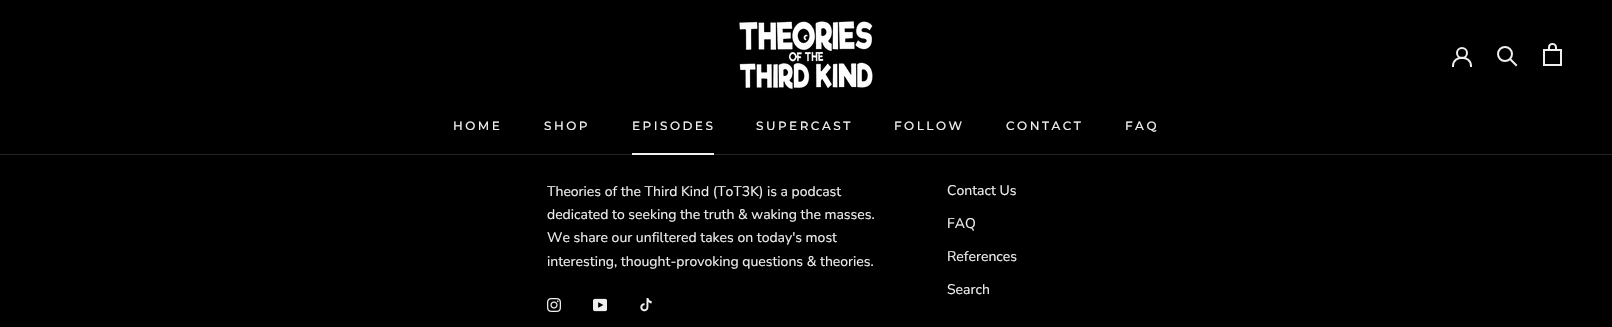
void draw(SkCanvas* c) {
SkPaint p;
p.setAntiAlias(true);
auto F=[&](const char* family, int weight, float size, bool italic = false){SkFontStyle style(weight, SkFontStyle::kNormal_Width,italic ? SkFontStyle::kItalic_Slant : SkFontStyle::kUpright_Slant);SkFont result(fontMgr->matchFamilyStyle(family, style), size);result.setSubpixel(true);return result;};
auto T=[&](const char* s, float x, float y, const SkFont& font){c->drawString(s, x, y, font, p);};
auto L=[&](const char* s, float x, float y, const SkFont& font, const SkPaint& ink, float letter, float word){std::vector<SkGlyphID> glyphs(font.countText(s, strlen(s), SkTextEncoding::kUTF8));std::vector<float> xs(glyphs.size());font.textToGlyphs(s, strlen(s), SkTextEncoding::kUTF8, glyphs);font.getXPos(glyphs, xs, x);float extra = 0;for (size_t i = 0; i < glyphs.size(); i++) {xs[i] += extra;extra += letter + word * (glyphs[i] == font.unicharToGlyph(' '));}c->drawTextBlob(SkTextBlob::MakeFromPosHGlyphs(glyphs, xs, y, font), 0, 0, ink);};
auto R=[&](float x, float y, float w, float h){c->drawRect(SkRect::MakeXYWH(x, y, w, h), p);};
auto I=[&](const char* path, float x, float y, float w, float h){auto image = SkImages::DeferredFromEncodedData(SkData::MakeFromFileName(path));c->drawImageRect(image, SkRect::MakeXYWH(x, y, w, h), SkSamplingOptions());};
auto P=[&](const char* data, bool evenOdd = false){SkPath result = *SkParsePath::FromSVGString(data);if (evenOdd) result.setFillType(SkPathFillType::kEvenOdd);return result;};
c->clear(0xff000000);
p.setColor(0xff242424);
R(0,154,1612,1);
I("1.png",738,19,136,71);
p.setStroke(true);
p.setStrokeWidth(2);
p.setStrokeCap(SkPaint::kSquare_Cap);
p.setColor(0xffefefef);
c->drawPath(P("M1453 66c0-11 18-11 18 0"),p);
p.setStrokeCap(SkPaint::kButt_Cap);
c->drawCircle(1462,53,5,p);
p.setStrokeCap(SkPaint::kSquare_Cap);
c->drawPath(P("M1516 65l-5.5-5.5"),p);
p.setStrokeCap(SkPaint::kButt_Cap);
c->drawCircle(1505,54,7,p);
I("2.png",1543,43,19,23);
auto f1 = F("Montserrat",500,12);
p.setStroke(false);
L("HOME",453,130,f1,p,2.5,0);
L("SHOP",544,130,f1,p,2.5,0);
L("EPISODES",632,130,f1,p,2.5,0);
R(632,153,82,2);
L("SUPERCAST",756,130,f1,p,2.5,0);
L("FOLLOW",894,130,f1,p,2.5,0);
L("CONTACT",1006,130,f1,p,2.5,0);
L("FAQ",1125,130,f1,p,2.5,0);
auto f2 = F("Nunito Sans",400,14);
T("Theories of the Third Kind (ToT3K) is a podcast",547,196,f2);
T("dedicated to seeking the truth & waking the masses.",547,219,f2);
T("We share our unfiltered takes on today's most",547,242,f2);
T("interesting, thought-provoking questions & theories.",547,266,f2);
I("3.png",547,298,14,14);
I("4.png",593,298,14,14);
I("5.png",640,298,12,14);
T("Contact Us",947,195,f2);
T("FAQ",947,228,f2);
T("References",947,261,f2);
T("Search",947,294,f2);
}
